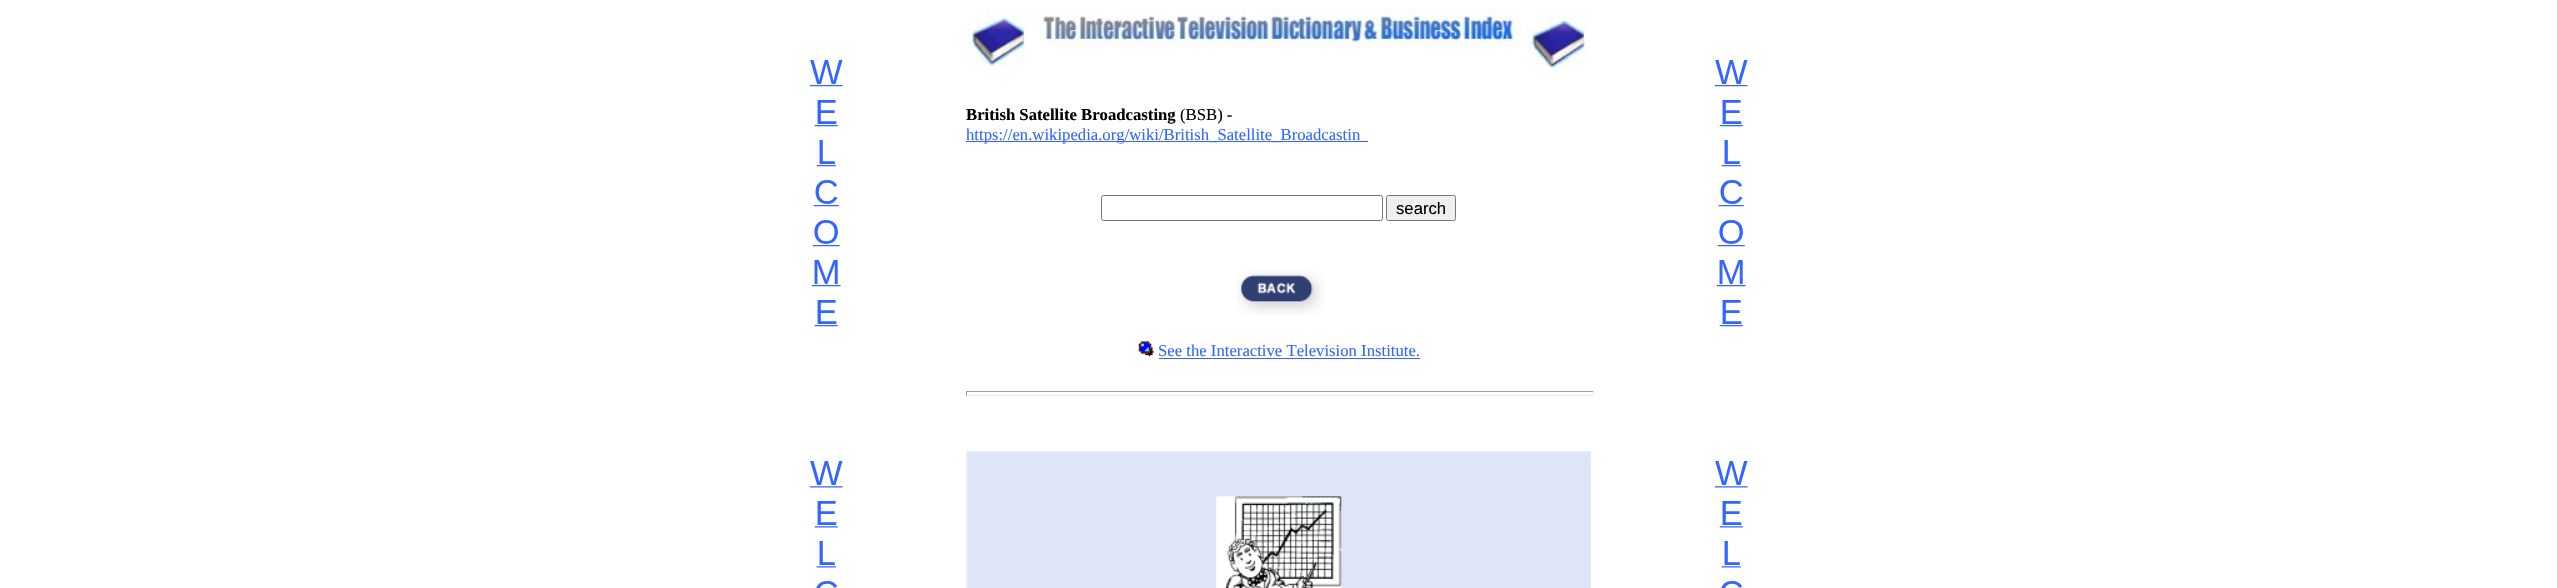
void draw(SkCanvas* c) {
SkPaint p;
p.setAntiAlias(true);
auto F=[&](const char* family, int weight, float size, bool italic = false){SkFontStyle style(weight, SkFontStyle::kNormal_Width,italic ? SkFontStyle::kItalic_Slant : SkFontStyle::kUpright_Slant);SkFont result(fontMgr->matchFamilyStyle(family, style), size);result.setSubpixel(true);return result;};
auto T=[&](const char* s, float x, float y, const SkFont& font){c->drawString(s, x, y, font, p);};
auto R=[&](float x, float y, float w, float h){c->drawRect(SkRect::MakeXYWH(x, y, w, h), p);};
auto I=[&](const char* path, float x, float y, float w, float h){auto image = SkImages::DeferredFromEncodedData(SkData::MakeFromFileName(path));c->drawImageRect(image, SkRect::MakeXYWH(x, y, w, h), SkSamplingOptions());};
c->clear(0xffffffff);
I("1.png",809,60,34,528);
I("2.png",966,7,621,62);
auto f1 = F("Liberation Serif",700,16.7);
p.setColor(0xff000000);
T("British Satellite Broadcasting",966,120,f1);
auto f2 = F("Liberation Serif",400,16.7);
T("(BSB) -",1180,120,f2);
p.setColor(0xff3366ff);
R(966,141,402,1);
T("https://en.wikipedia.org/wiki/British_Satellite_Broadcastin",966,140,f2);
p.setStroke(true);
p.setStrokeWidth(1);
p.setColor(0xff767676);
c->drawRoundRect(SkRect::MakeXYWH(1101.5,195.5,281,25),2,2,p);
p.setStroke(false);
p.setColor(0xffefefef);
c->drawRoundRect(SkRect::MakeXYWH(1386.5,195.5,69,25),2,2,p);
p.setStroke(true);
p.setColor(0xff767676);
c->drawRoundRect(SkRect::MakeXYWH(1386.5,195.5,69,25),2,2,p);
auto f3 = F("Liberation Sans",400,16.7);
p.setStroke(false);
p.setColor(0xff000000);
T("search",1396,214,f3);
I("3.png",1236,270,88,45);
I("4.png",1138,341,16,16);
p.setColor(0xff3366ff);
T("See the Interactive Television Institute.",1158,356,f2);
R(1159,358,261,1);
p.setColor(0xff9f9f9f);
R(966,391,628,1);
p.setColor(0xffeeeeee);
R(1593,391,1,5);
R(966,395,628,1);
p.setColor(0xff9f9f9f);
R(966,391,1,5);
I("5.png",966,451,625,137);
I("1.png",1714,60,34,528);
}
